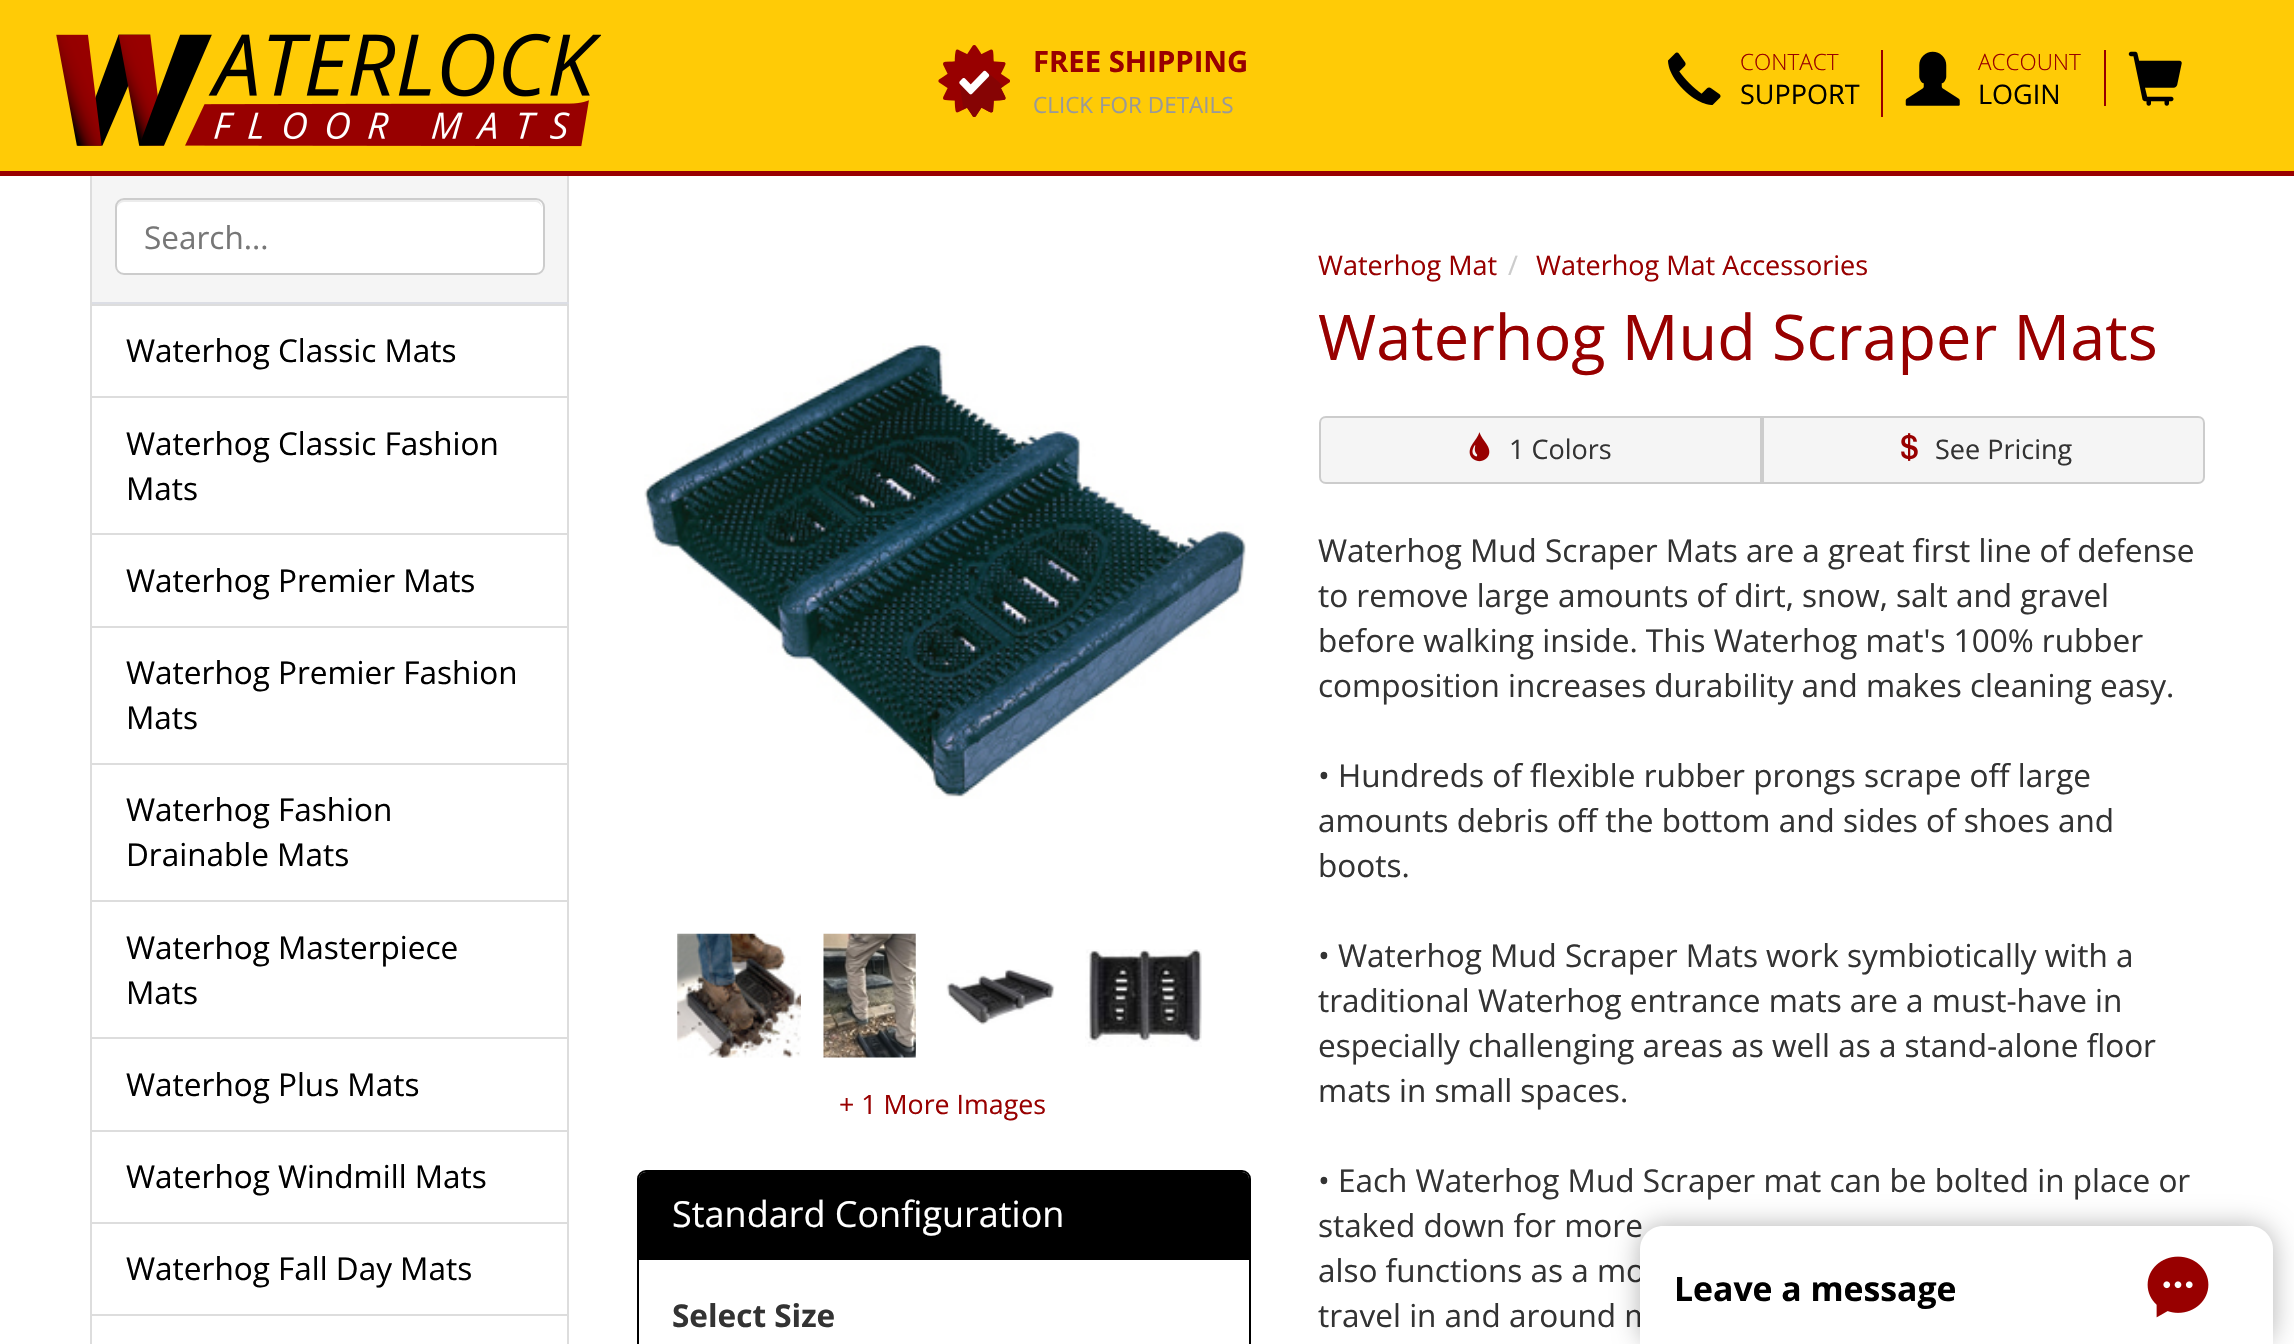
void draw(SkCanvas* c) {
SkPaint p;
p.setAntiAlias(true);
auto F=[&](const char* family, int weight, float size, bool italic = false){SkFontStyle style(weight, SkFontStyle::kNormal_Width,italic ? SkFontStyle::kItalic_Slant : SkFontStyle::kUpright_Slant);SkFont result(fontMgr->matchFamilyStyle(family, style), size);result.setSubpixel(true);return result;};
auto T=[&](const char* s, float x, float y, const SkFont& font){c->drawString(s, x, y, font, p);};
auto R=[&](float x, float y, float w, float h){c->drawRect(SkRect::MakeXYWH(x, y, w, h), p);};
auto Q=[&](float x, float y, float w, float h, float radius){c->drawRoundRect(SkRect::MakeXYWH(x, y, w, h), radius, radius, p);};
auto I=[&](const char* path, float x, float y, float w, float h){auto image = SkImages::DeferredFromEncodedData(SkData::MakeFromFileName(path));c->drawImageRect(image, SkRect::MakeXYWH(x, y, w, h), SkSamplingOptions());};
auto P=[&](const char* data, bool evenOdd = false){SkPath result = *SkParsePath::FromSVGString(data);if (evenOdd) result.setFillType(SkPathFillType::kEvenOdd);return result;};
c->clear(0xffffffff);
p.setColor(0xffffcb06);
R(0,0,2294,171);
p.setColor(0xff980000);
R(0,171,2294,5);
I("1.png",56,33,545,114);
I("2.png",938,45,72,72);
auto f1 = F("Open Sans",700,29.25);
T("FREE SHIPPING",1033,72,f1);
auto f2 = F("Open Sans",400,22.5);
p.setColor(0xff999999);
T("CLICK FOR DETAILS",1033,113,f2);
I("3.png",1668,52,53,53);
auto f3 = F("Open Sans",300,22.5);
p.setColor(0xff980000);
T("CONTACT",1740,70,f3);
auto f4 = F("Open Sans",400,27);
p.setColor(0xff000000);
T("SUPPORT",1740,104,f4);
p.setColor(0xff980000);
R(1881,50,2,67);
I("4.png",1905,51,55,55);
T("ACCOUNT",1978,70,f3);
p.setColor(0xff000000);
T("LOGIN",1978,104,f4);
p.setColor(0xff980000);
R(2104,50,2,56);
I("5.png",2128,51,54,55);
p.setColor(0xfff5f5f5);
R(92,176,475,126);
p.setColor(0xffdddddd);
R(567,176,2,128);
p.setColor(0xffdcdee5);
R(90,302,479,2);
p.setColor(0xffdddddd);
R(90,176,2,128);
p.setColor(0xffffffff);
Q(115,198,430,77,9);
p.setColor(0xffececec);
c->drawPath(P("M124 202h412c3 0 6 4 6 7c0-4-2-9-7-9h-411c-5 0-7 5-7 9c0-3 3-7 7-7z"),p);
p.setStroke(true);
p.setStrokeWidth(2);
p.setColor(0xffcccccc);
c->drawRoundRect(SkRect::MakeXYWH(116,199,428,75),8,8,p);
auto f5 = F("Open Sans",400,31.5);
p.setStroke(false);
p.setColor(0xff777777);
T("Search...",144,249,f5);
p.setStroke(true);
p.setColor(0xffdddddd);
c->drawRect(SkRect::MakeXYWH(91,305,477,92),p);
p.setStroke(false);
p.setColor(0xff000000);
T("Waterhog Classic Mats",126,362,f5);
p.setStroke(true);
p.setColor(0xffdddddd);
c->drawRect(SkRect::MakeXYWH(91,397,477,138),p);
p.setStroke(false);
p.setColor(0xff000000);
T("Waterhog Classic Fashion",126,455,f5);
T("Mats",126,500,f5);
p.setColor(0xffffffff);
R(92,535,475,1);
p.setStroke(true);
p.setColor(0xffdddddd);
c->drawRect(SkRect::MakeXYWH(91,534,477,93),p);
p.setStroke(false);
p.setColor(0xff000000);
T("Waterhog Premier Mats",126,592,f5);
p.setStroke(true);
p.setColor(0xffdddddd);
c->drawRect(SkRect::MakeXYWH(91,627,477,137),p);
p.setStroke(false);
p.setColor(0xff000000);
T("Waterhog Premier Fashion",126,684,f5);
T("Mats",126,729,f5);
p.setStroke(true);
p.setColor(0xffdddddd);
c->drawRect(SkRect::MakeXYWH(91,764,477,137),p);
p.setStroke(false);
p.setColor(0xff000000);
T("Waterhog Fashion",126,821,f5);
T("Drainable Mats",126,866,f5);
p.setStroke(true);
p.setColor(0xffdddddd);
c->drawRect(SkRect::MakeXYWH(91,901,477,138),p);
p.setStroke(false);
p.setColor(0xff000000);
T("Waterhog Masterpiece",126,959,f5);
T("Mats",126,1004,f5);
p.setColor(0xffffffff);
R(92,1039,475,1);
p.setStroke(true);
p.setColor(0xffdddddd);
c->drawRect(SkRect::MakeXYWH(91,1038,477,93),p);
p.setStroke(false);
p.setColor(0xff000000);
T("Waterhog Plus Mats",126,1096,f5);
p.setStroke(true);
p.setColor(0xffdddddd);
c->drawRect(SkRect::MakeXYWH(91,1131,477,92),p);
p.setStroke(false);
p.setColor(0xff000000);
T("Waterhog Windmill Mats",126,1188,f5);
p.setStroke(true);
p.setColor(0xffdddddd);
c->drawRect(SkRect::MakeXYWH(91,1223,477,92),p);
p.setStroke(false);
p.setColor(0xff000000);
T("Waterhog Fall Day Mats",126,1280,f5);
p.setStroke(true);
p.setColor(0xffdddddd);
c->drawRect(SkRect::MakeXYWH(91,1315,477,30),p);
I("6.png",644,343,602,456);
I("7.png",677,933,124,125);
I("8.png",823,933,93,125);
I("9.png",946,969,109,56);
I("10.png",1085,949,117,98);
auto f6 = F("Open Sans",400,26.75);
p.setStroke(false);
p.setColor(0xff980000);
T("+ 1 More Images",839,1114,f6);
p.setStroke(true);
p.setColor(0xff000000);
c->drawRoundRect(SkRect::MakeXYWH(638,1171,612,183),8,8,p);
p.setStroke(false);
c->drawPath(P("M646 1172h596c4 0 7 3 7 7v81h-610v-81c0-4 3-7 7-7z"),p);
auto f7 = F("Open Sans",400,36);
p.setColor(0xffffffff);
T("Standard Configuration",672,1227,f7);
auto f8 = F("Open Sans",700,31.5);
p.setColor(0xff333333);
T("Select Size",672,1327,f8);
p.setColor(0xff980000);
T("Waterhog Mat",1318,275,f4);
p.setColor(0xffcccccc);
T("/",1508,275,f4);
p.setColor(0xff980000);
T("Waterhog Mat Accessories",1536,275,f4);
auto f9 = F("Open Sans",400,63);
T("Waterhog Mud Scraper Mats",1318,360,f9);
p.setColor(0xfff5f5f5);
c->drawPath(P("M1326 417h435v66h-435c-3.5 0-6-2.5-6-6v-54c0-3.5 2.5-6 6-6z"),p);
p.setStroke(true);
p.setColor(0xffcccccc);
c->drawPath(P("M1326 417h435v66h-435c-3.5 0-6-2.5-6-6v-54c0-3.5 2.5-6 6-6z"),p);
I("11.png",1469,432,21,30);
p.setStroke(false);
p.setColor(0xff333333);
T("1 Colors",1509,459,f4);
p.setColor(0xfff5f5f5);
c->drawPath(P("M1763 417h435c3.5 0 6 2.5 6 6v54c0 3.5-2.5 6-6 6h-435z"),p);
p.setStroke(true);
p.setColor(0xffcccccc);
c->drawPath(P("M1763 417h435c3.5 0 6 2.5 6 6v54c0 3.5-2.5 6-6 6h-435z"),p);
I("12.png",1901,433,17,28);
p.setStroke(false);
p.setColor(0xff333333);
T("See Pricing",1935,459,f4);
T("Waterhog Mud Scraper Mats are a great first line of defense",1318,562,f5);
T("to remove large amounts of dirt, snow, salt and gravel",1318,607,f5);
T("before walking inside. This Waterhog mat's 100% rubber",1318,652,f5);
T("composition increases durability and makes cleaning easy.",1318,697,f5);
T("• Hundreds of flexible rubber prongs scrape off large",1318,787,f5);
T("amounts debris off the bottom and sides of shoes and",1318,832,f5);
T("boots.",1318,877,f5);
T("• Waterhog Mud Scraper Mats work symbiotically with a",1318,967,f5);
T("traditional Waterhog entrance mats are a must-have in",1318,1012,f5);
T("especially challenging areas as well as a stand-alone floor",1318,1057,f5);
T("mats in small spaces.",1318,1102,f5);
T("• Each Waterhog Mud Scraper mat can be bolted in place or",1318,1192,f5);
T("staked down for more",1318,1237,f5);
T("also functions as a mo",1318,1282,f5);
T("travel in and around m",1318,1327,f5);
p.setColor(0x4d000000);
p.setMaskFilter(SkMaskFilter::MakeBlur(kNormal_SkBlurStyle, 13.5));
c->drawRoundRect(SkRect::MakeXYWH(1640,1226,633,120),23,23,p);
p.setMaskFilter(nullptr);
p.setColor(0xffffffff);
c->drawPath(P("M1663 1226h587c12.5 0 23 10.5 23 23v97h-633v-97c0-12.5 10.5-23 23-23z"),p);
auto f10 = F("Open Sans",700,33.75);
p.setColor(0xff000000);
T("Leave a message",1674,1301,f10);
I("13.png",2147,1256,62,62);
}
